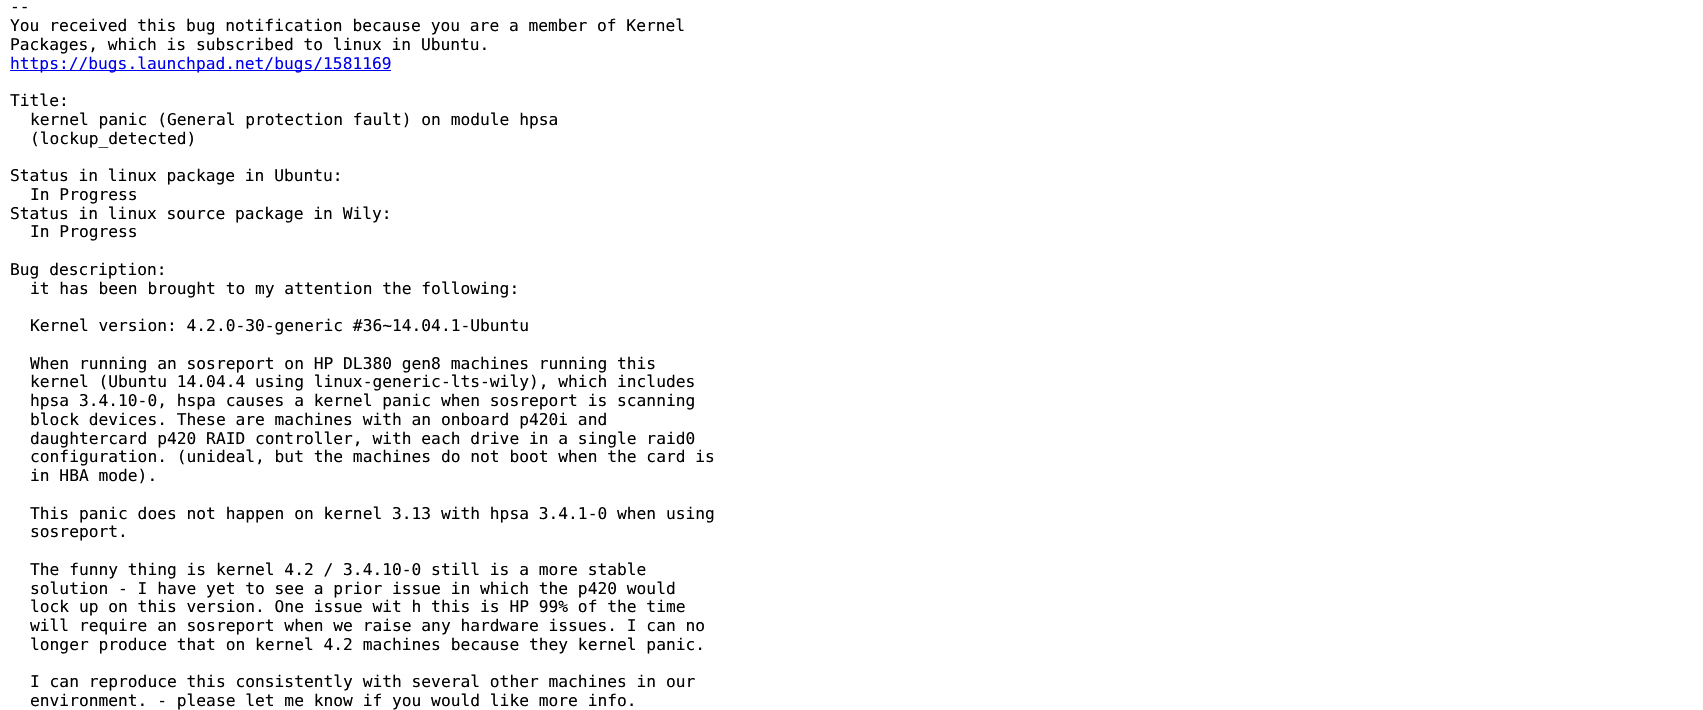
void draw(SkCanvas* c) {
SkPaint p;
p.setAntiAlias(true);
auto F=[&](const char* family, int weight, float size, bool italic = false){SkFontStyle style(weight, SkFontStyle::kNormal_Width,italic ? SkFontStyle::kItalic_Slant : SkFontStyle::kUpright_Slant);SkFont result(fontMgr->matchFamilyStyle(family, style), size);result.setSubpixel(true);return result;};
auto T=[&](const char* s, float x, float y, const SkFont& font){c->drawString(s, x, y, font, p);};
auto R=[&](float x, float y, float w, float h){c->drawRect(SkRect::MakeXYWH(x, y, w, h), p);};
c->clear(0xffffffff);
auto f1 = F("DejaVu Sans Mono",400,16.25);
p.setColor(0xff000000);
T("--",10,12,f1);
T("You received this bug notification because you are a member of Kernel",10,31,f1);
T("Packages, which is subscribed to linux in Ubuntu.",10,50,f1);
p.setColor(0xff0000ee);
R(10,70,381,1);
T("https://bugs.launchpad.net/bugs/1581169",10,69,f1);
p.setColor(0xff000000);
T("Title:",10,106,f1);
T("kernel panic (General protection fault) on module hpsa",30,125,f1);
T("(lockup_detected)",30,144,f1);
T("Status in linux package in Ubuntu:",10,181,f1);
T("In Progress",30,200,f1);
T("Status in linux source package in Wily:",10,219,f1);
T("In Progress",30,237,f1);
T("Bug description:",10,275,f1);
T("it has been brought to my attention the following:",30,294,f1);
T("Kernel version: 4.2.0-30-generic #36~14.04.1-Ubuntu",30,331,f1);
T("When running an sosreport on HP DL380 gen8 machines running this",30,369,f1);
T("kernel (Ubuntu 14.04.4 using linux-generic-lts-wily), which includes",30,387,f1);
T("hpsa 3.4.10-0, hspa causes a kernel panic when sosreport is scanning",30,406,f1);
T("block devices. These are machines with an onboard p420i and",30,425,f1);
T("daughtercard p420 RAID controller, with each drive in a single raid0",30,444,f1);
T("configuration. (unideal, but the machines do not boot when the card is",30,462,f1);
T("in HBA mode).",30,481,f1);
T("This panic does not happen on kernel 3.13 with hpsa 3.4.1-0 when using",30,519,f1);
T("sosreport.",30,537,f1);
T("The funny thing is kernel 4.2 / 3.4.10-0 still is a more stable",30,575,f1);
T("solution - I have yet to see a prior issue in which the p420 would",30,594,f1);
T("lock up on this version. One issue wit h this is HP 99% of the time",30,612,f1);
T("will require an sosreport when we raise any hardware issues. I can no",30,631,f1);
T("longer produce that on kernel 4.2 machines because they kernel panic.",30,650,f1);
T("I can reproduce this consistently with several other machines in our",30,687,f1);
T("environment. - please let me know if you would like more info.",30,706,f1);
}
